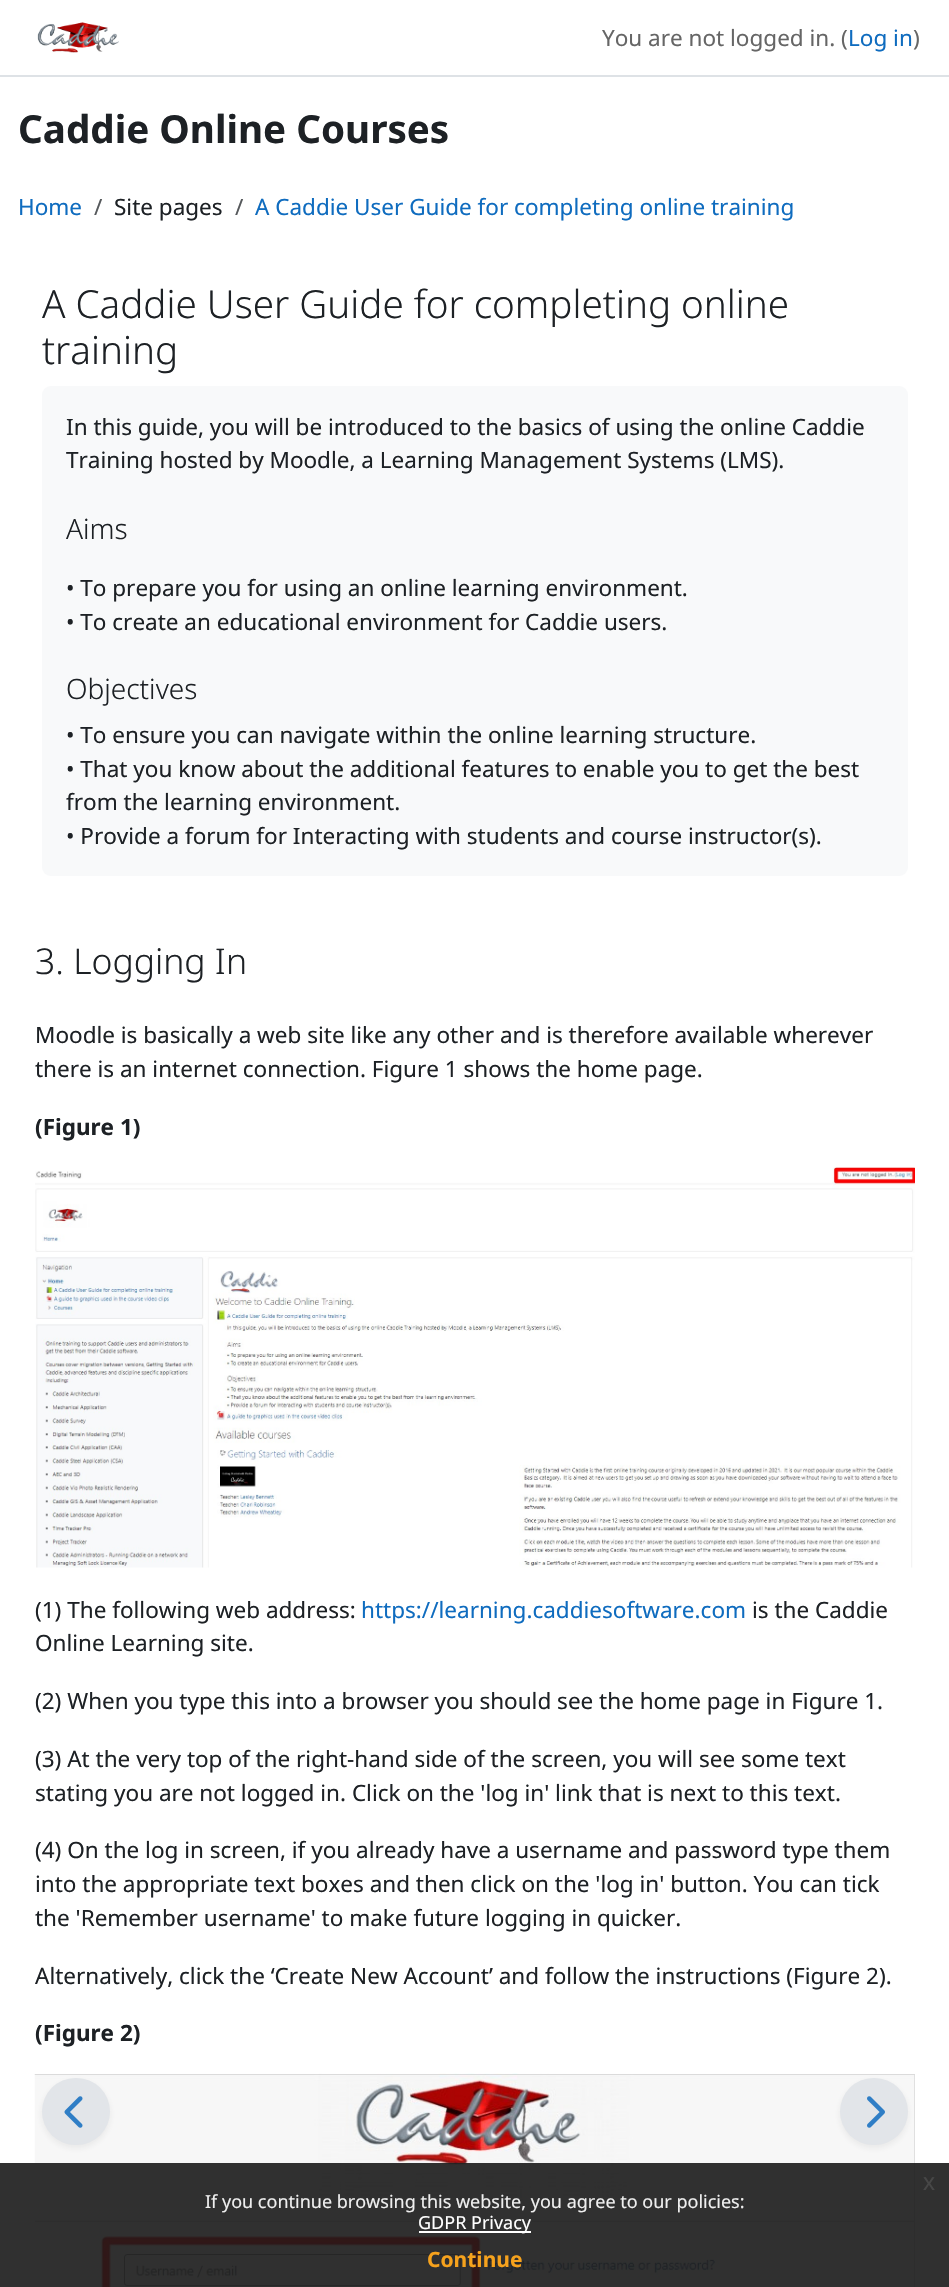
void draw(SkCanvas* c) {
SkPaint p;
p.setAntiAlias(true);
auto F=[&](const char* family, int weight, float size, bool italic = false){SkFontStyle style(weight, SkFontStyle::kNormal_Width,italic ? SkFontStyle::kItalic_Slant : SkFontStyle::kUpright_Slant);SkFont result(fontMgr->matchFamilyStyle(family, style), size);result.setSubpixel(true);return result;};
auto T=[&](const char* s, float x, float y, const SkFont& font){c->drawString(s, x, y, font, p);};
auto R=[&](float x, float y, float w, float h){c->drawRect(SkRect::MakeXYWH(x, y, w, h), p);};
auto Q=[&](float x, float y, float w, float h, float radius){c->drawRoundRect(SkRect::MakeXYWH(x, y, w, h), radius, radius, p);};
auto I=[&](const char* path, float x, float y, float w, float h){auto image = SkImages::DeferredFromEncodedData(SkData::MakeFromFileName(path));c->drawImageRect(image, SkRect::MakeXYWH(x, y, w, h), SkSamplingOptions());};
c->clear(0xffffffff);
p.setColor(0xffdee2e6);
R(0,75,949,2);
I("1.png",37,22,82,31);
auto f1 = F("Noto Sans",400,22.5);
p.setColor(0xff666666);
T("You are not logged in. (",602,46,f1);
p.setColor(0xff0f6cbf);
T("Log in",848,46,f1);
p.setColor(0xff666666);
T(")",913,46,f1);
auto f2 = F("Noto Sans",700,38.6);
p.setColor(0xff1d2125);
T("Caddie Online Courses",18,143,f2);
p.setColor(0xff0f6cbf);
T("Home",18,215,f1);
p.setColor(0xff56595c);
T("/",94,215,f1);
p.setColor(0xff1d2125);
T("Site pages",114,215,f1);
p.setColor(0xff56595c);
T("/",235,215,f1);
p.setColor(0xff0f6cbf);
T("A Caddie User Guide for completing online training",255,215,f1);
auto f3 = F("Noto Sans",300,38.6);
p.setColor(0xff1d2125);
T("A Caddie User Guide for completing online",42,318,f3);
T("training",42,364,f3);
p.setColor(0xfff8f9fa);
Q(42,386,866,490,9);
p.setColor(0xff1d2125);
T("In this guide, you will be introduced to the basics of using the online Caddie",66,435,f1);
T("Training hosted by Moodle, a Learning Management Systems (LMS).",66,468,f1);
auto f4 = F("Noto Sans",300,28);
T("Aims",66,539,f4);
T("• To prepare you for using an online learning environment.",66,596,f1);
T("• To create an educational environment for Caddie users.",66,630,f1);
T("Objectives",66,699,f4);
T("• To ensure you can navigate within the online learning structure.",66,743,f1);
T("• That you know about the additional features to enable you to get the best",66,777,f1);
T("from the learning environment.",66,810,f1);
T("• Provide a forum for Interacting with students and course instructor(s).",66,844,f1);
auto f5 = F("Noto Sans",300,35.5);
T("3. Logging In",35,974,f5);
T("Moodle is basically a web site like any other and is therefore available wherever",35,1043,f1);
T("there is an internet connection. Figure 1 shows the home page.",35,1077,f1);
auto f6 = F("Noto Sans",700,22.5);
T("(Figure 1)",35,1135,f6);
I("2.png",35,1167,880,401);
T("(1) The following web address:",35,1618,f1);
p.setColor(0xff0f6cbf);
T("https://learning.caddiesoftware.com",361,1618,f1);
p.setColor(0xff1d2125);
T("is the Caddie",752,1618,f1);
T("Online Learning site.",35,1651,f1);
T("(2) When you type this into a browser you should see the home page in Figure 1.",35,1709,f1);
T("(3) At the very top of the right-hand side of the screen, you will see some text",35,1767,f1);
T("stating you are not logged in. Click on the 'log in' link that is next to this text.",35,1801,f1);
T("(4) On the log in screen, if you already have a username and password type them",35,1858,f1);
T("into the appropriate text boxes and then click on the 'log in' button. You can tick",35,1892,f1);
T("the 'Remember username' to make future logging in quicker.",35,1926,f1);
T("Alternatively, click the ‘Create New Account’ and follow the instructions (Figure 2).",35,1984,f1);
T("(Figure 2)",35,2041,f6);
I("3.png",34,2073,881,214);
p.setColor(0x12252525);
p.setMaskFilter(SkMaskFilter::MakeBlur(kNormal_SkBlurStyle, 3));
c->drawRoundRect(SkRect::MakeXYWH(42,2081,68,67),33.5,33.5,p);
p.setMaskFilter(nullptr);
p.setColor(0xffe2e5e9);
Q(42,2078,68,67,33.5);
I("4.png",64,2096,19,32);
p.setColor(0x12252525);
p.setMaskFilter(SkMaskFilter::MakeBlur(kNormal_SkBlurStyle, 3));
c->drawRoundRect(SkRect::MakeXYWH(840,2081,68,67),33.5,33.5,p);
p.setMaskFilter(nullptr);
p.setColor(0xffe2e5e9);
Q(840,2078,68,67,33.5);
I("5.png",867,2096,18,32);
p.setColor(0xe6191919);
R(0,2163,949,124);
auto f7 = F("Liberation Sans",400,24);
p.setColor(0xff474747);
T("x",923,2190,f7);
auto f8 = F("Noto Sans",400,18);
p.setColor(0xffefefef);
T("If you continue browsing this website, you agree to our policies:",205,2208,f8);
p.setColor(0xffffffff);
R(419,2231,112,2);
T("GDPR Privacy",418,2229,f8);
auto f9 = F("Noto Sans",700,21);
p.setColor(0xfff6a21d);
T("Continue",427,2267,f9);
}
